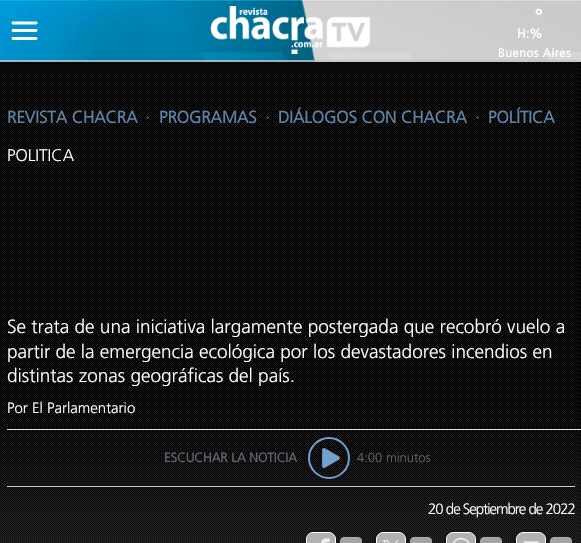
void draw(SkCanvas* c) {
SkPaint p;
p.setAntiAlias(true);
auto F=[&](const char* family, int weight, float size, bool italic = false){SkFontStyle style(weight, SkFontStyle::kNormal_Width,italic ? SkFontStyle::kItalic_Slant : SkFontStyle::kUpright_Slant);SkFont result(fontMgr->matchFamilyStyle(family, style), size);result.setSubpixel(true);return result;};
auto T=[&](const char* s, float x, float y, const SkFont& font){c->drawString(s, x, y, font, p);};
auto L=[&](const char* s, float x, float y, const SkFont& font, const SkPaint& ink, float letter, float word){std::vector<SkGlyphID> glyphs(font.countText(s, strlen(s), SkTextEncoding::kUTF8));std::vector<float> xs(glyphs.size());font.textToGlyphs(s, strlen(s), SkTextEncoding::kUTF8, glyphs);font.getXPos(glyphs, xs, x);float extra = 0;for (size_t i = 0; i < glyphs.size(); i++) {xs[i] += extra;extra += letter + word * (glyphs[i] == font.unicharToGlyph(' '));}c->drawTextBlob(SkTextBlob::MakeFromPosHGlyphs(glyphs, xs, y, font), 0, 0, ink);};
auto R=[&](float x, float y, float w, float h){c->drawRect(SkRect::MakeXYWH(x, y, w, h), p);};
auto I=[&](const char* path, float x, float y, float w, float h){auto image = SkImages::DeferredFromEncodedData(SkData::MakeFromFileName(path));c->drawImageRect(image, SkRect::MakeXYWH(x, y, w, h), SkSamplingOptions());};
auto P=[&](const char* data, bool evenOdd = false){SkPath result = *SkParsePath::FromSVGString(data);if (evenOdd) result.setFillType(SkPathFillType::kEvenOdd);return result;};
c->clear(0xffffffff);
I("3.png",0,62,581,481);
p.setColor(0x33000000);
p.setMaskFilter(SkMaskFilter::MakeBlur(kNormal_SkBlurStyle, 4));
c->drawRect(SkRect::MakeXYWH(-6,-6,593,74),p);
p.setMaskFilter(nullptr);
I("1.png",0,0,581,62);
p.setColor(0xccc3c3c3);
R(0,60,581,2);
p.setStroke(true);
p.setStrokeWidth(2.9);
p.setStrokeCap(SkPaint::kRound_Cap);
p.setStrokeJoin(SkPaint::kRound_Join);
p.setColor(0xffffffff);
c->drawPath(P("M13 23h23m-23 7.5h23m-23 8h23"),p);
I("2.png",210,6,160,48);
auto f1 = F("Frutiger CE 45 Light",700,18);
p.setStroke(false);
T("°",535,22,f1);
auto f2 = F("Frutiger CE 45 Light",700,13);
T("H:%",517,38,f2);
c->save();
c->clipRect(SkRect::MakeXYWH(494,46,80,11));
auto f3 = F("Frutiger CE 45 Light",700,12);
L("Buenos Aires",498,57,f3,p,.6,0);
c->restore();
auto f4 = F("Frutiger CE 45 Light",700,16.9);
p.setColor(0xff5e83a7);
T("REVISTA CHACRA",7,123,f4);
p.setColor(0xff646473);
T("·",145,123,f4);
p.setColor(0xff5e83a7);
T("PROGRAMAS",159,123,f4);
p.setColor(0xff646473);
T("·",265,123,f4);
p.setColor(0xff5e83a7);
T("DIÁLOGOS CON CHACRA",278,123,f4);
p.setColor(0xff646473);
T("·",475,123,f4);
p.setColor(0xff5e83a7);
T("POLÍTICA",488,123,f4);
auto f5 = F("Frutiger CE 45 Light",300,17);
p.setColor(0xffffffff);
T("POLITICA",7,161,f5);
auto f6 = F("Frutiger CE 45 Light",300,19);
T("Se trata de una iniciativa largamente postergada que recobró vuelo a",7,333,f6);
T("partir de la emergencia ecológica por los devastadores incendios en",7,358,f6);
T("distintas zonas geográficas del país.",7,382,f6);
auto f7 = F("Frutiger CE 45 Light",300,15);
T("Por",7,413,f7);
T("El Parlamentario",32,413,f7);
p.setColor(0xffe1dfdf);
R(7,429,574,1);
p.setColor(0xff646473);
T("ESCUCHAR LA NOTICIA",164,462,f2);
p.setStroke(true);
p.setStrokeWidth(2);
p.setStrokeCap(SkPaint::kButt_Cap);
p.setStrokeJoin(SkPaint::kMiter_Join);
p.setColor(0xff73a1ce);
c->drawCircle(329,458,20,p);
I("4.png",322,448,18,20);
auto f8 = F("Frutiger CE 45 Light",300,13);
p.setStroke(false);
p.setColor(0xff646473);
T("4:00 minutos",357,462,f8);
p.setColor(0xffcccccc);
R(7,486,568,1);
p.setColor(0xffffffff);
L("20 de Septiembre de 2022",428,514,f7,p,-1,0);
p.setColor(0x99ffffff);
c->drawRoundRect(SkRect::MakeXYWH(340.5,537.5,21,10),3.5,3.5,p);
p.setStroke(true);
p.setStrokeWidth(1);
p.setColor(0xffaaaaaa);
c->drawRoundRect(SkRect::MakeXYWH(340.5,537.5,21,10),3.5,3.5,p);
p.setStroke(false);
p.setColor(0xe6000000);
p.setMaskFilter(SkMaskFilter::MakeBlur(kNormal_SkBlurStyle, 1.5));
c->drawRoundRect(SkRect::MakeXYWH(306,532,30,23),7,7,p);
p.setMaskFilter(nullptr);
p.setColor(0xffb1b1b1);
c->drawRoundRect(SkRect::MakeXYWH(306.5,532.5,29,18),6.5,6.5,p);
p.setStroke(true);
p.setColor(0xffffffff);
c->drawRoundRect(SkRect::MakeXYWH(306.5,532.5,29,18),6.5,6.5,p);
I("5.png",321,538,9,5);
p.setStroke(false);
p.setColor(0x99ffffff);
c->drawRoundRect(SkRect::MakeXYWH(410.5,537.5,21,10),3.5,3.5,p);
p.setStroke(true);
p.setColor(0xffaaaaaa);
c->drawRoundRect(SkRect::MakeXYWH(410.5,537.5,21,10),3.5,3.5,p);
p.setStroke(false);
p.setColor(0xe6000000);
p.setMaskFilter(SkMaskFilter::MakeBlur(kNormal_SkBlurStyle, 1.5));
c->drawRoundRect(SkRect::MakeXYWH(376,532,30,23),7,7,p);
p.setMaskFilter(nullptr);
p.setColor(0xffb1b1b1);
c->drawRoundRect(SkRect::MakeXYWH(376.5,532.5,29,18),6.5,6.5,p);
p.setStroke(true);
p.setColor(0xffffffff);
c->drawRoundRect(SkRect::MakeXYWH(376.5,532.5,29,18),6.5,6.5,p);
I("6.png",382,540,17,3);
p.setStroke(false);
p.setColor(0x99ffffff);
c->drawRoundRect(SkRect::MakeXYWH(480.5,537.5,21,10),3.5,3.5,p);
p.setStroke(true);
p.setColor(0xffaaaaaa);
c->drawRoundRect(SkRect::MakeXYWH(480.5,537.5,21,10),3.5,3.5,p);
p.setStroke(false);
p.setColor(0xe6000000);
p.setMaskFilter(SkMaskFilter::MakeBlur(kNormal_SkBlurStyle, 1.5));
c->drawRoundRect(SkRect::MakeXYWH(446,532,30,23),7,7,p);
p.setMaskFilter(nullptr);
p.setColor(0xffb1b1b1);
c->drawRoundRect(SkRect::MakeXYWH(446.5,532.5,29,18),6.5,6.5,p);
p.setStroke(true);
p.setColor(0xffffffff);
c->drawRoundRect(SkRect::MakeXYWH(446.5,532.5,29,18),6.5,6.5,p);
I("7.png",452,537,18,6);
p.setStroke(false);
p.setColor(0x99ffffff);
c->drawRoundRect(SkRect::MakeXYWH(550.5,537.5,21,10),3.5,3.5,p);
p.setStroke(true);
p.setColor(0xffaaaaaa);
c->drawRoundRect(SkRect::MakeXYWH(550.5,537.5,21,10),3.5,3.5,p);
p.setStroke(false);
p.setColor(0xe6000000);
p.setMaskFilter(SkMaskFilter::MakeBlur(kNormal_SkBlurStyle, 1.5));
c->drawRoundRect(SkRect::MakeXYWH(516,532,30,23),7,7,p);
p.setMaskFilter(nullptr);
p.setColor(0xffb1b1b1);
c->drawRoundRect(SkRect::MakeXYWH(516.5,532.5,29,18),6.5,6.5,p);
p.setStroke(true);
p.setColor(0xffffffff);
c->drawRoundRect(SkRect::MakeXYWH(516.5,532.5,29,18),6.5,6.5,p);
I("8.png",521,541,20,2);
}
